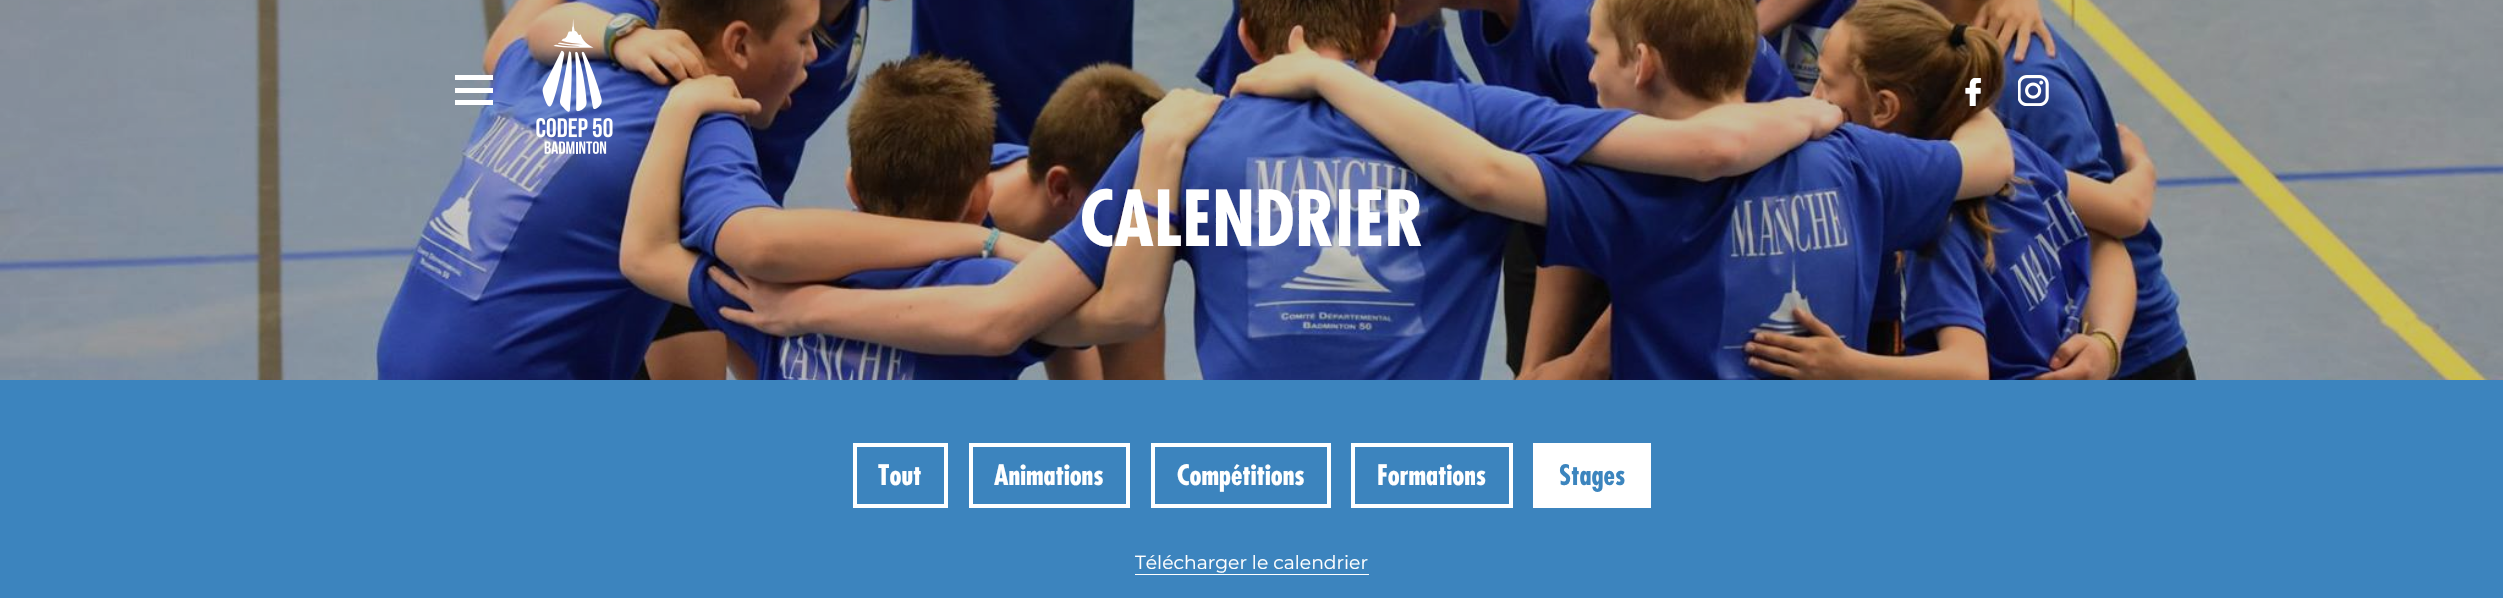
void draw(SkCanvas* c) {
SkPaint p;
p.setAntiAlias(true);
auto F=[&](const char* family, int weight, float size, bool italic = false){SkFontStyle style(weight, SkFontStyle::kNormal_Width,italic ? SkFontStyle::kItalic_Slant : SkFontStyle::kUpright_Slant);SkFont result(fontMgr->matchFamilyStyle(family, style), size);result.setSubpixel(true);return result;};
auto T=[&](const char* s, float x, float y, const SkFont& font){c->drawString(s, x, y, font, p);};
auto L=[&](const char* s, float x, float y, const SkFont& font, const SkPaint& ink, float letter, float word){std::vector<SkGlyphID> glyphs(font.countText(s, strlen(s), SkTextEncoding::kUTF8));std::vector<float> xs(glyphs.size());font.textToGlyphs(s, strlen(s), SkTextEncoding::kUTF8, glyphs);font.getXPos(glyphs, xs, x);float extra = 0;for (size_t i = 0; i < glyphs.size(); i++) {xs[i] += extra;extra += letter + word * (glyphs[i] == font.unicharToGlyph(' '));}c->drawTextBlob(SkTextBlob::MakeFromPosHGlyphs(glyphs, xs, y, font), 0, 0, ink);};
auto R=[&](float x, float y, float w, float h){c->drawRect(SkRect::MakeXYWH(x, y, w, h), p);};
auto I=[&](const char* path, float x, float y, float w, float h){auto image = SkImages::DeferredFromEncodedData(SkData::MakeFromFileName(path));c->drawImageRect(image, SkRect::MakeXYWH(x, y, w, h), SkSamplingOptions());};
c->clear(0xffffffff);
I("4.png",0,0,2503,380);
p.setColor(0xffffffff);
R(455,75,38,5);
R(455,88,38,5);
R(455,100,38,5);
I("1.png",536,19,77,135);
I("2.png",1965,78,16,28);
I("3.png",2018,75,31,31);
auto f1 = F("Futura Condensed",700,75);
L("CALENDRIER",1080,246,f1,p,.25,0);
p.setColor(0xff3c84be);
R(0,380,2503,218);
p.setStroke(true);
p.setStrokeWidth(4);
p.setColor(0xffffffff);
c->drawRect(SkRect::MakeXYWH(855,445,91,61),p);
auto f2 = F("Futura Condensed",700,27.5);
p.setStroke(false);
T("Tout",878,485,f2);
p.setStroke(true);
c->drawRect(SkRect::MakeXYWH(971,445,157,61),p);
p.setStroke(false);
T("Animations",994,485,f2);
p.setStroke(true);
c->drawRect(SkRect::MakeXYWH(1153,445,176,61),p);
p.setStroke(false);
T("Compétitions",1177,485,f2);
p.setStroke(true);
c->drawRect(SkRect::MakeXYWH(1353,445,158,61),p);
p.setStroke(false);
T("Formations",1377,485,f2);
R(1533,443,118,65);
p.setColor(0xff3c85be);
T("Stages",1559,485,f2);
p.setColor(0xffffffff);
R(1135,574,234,1);
auto f3 = F("Montserrat",400,18.75);
T("Télécharger le calendrier",1135,569,f3);
}
